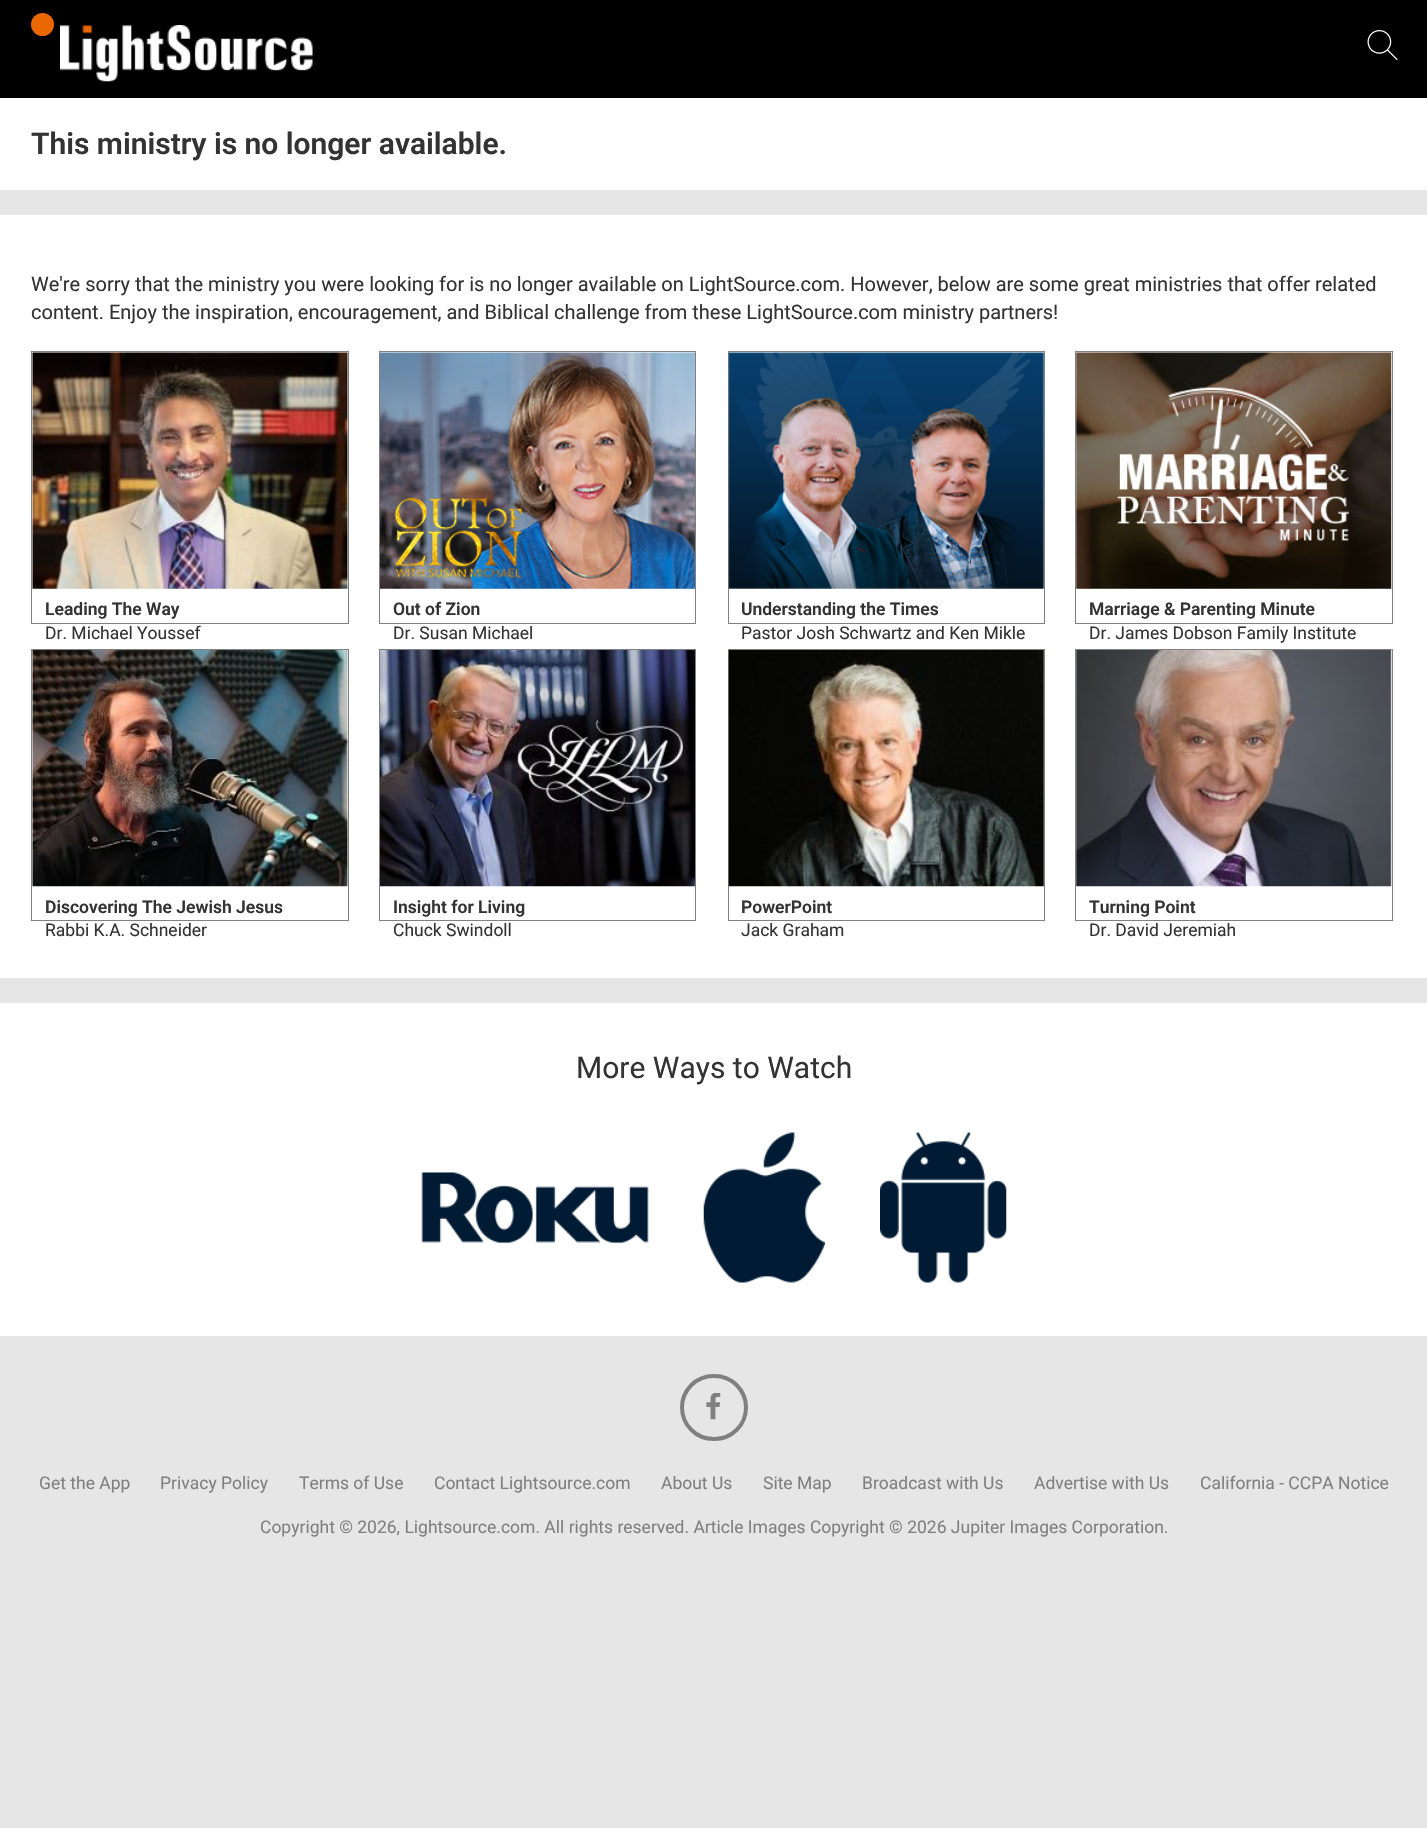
void draw(SkCanvas* c) {
SkPaint p;
p.setAntiAlias(true);
auto F=[&](const char* family, int weight, float size, bool italic = false){SkFontStyle style(weight, SkFontStyle::kNormal_Width,italic ? SkFontStyle::kItalic_Slant : SkFontStyle::kUpright_Slant);SkFont result(fontMgr->matchFamilyStyle(family, style), size);result.setSubpixel(true);return result;};
auto T=[&](const char* s, float x, float y, const SkFont& font){c->drawString(s, x, y, font, p);};
auto R=[&](float x, float y, float w, float h){c->drawRect(SkRect::MakeXYWH(x, y, w, h), p);};
auto I=[&](const char* path, float x, float y, float w, float h){auto image = SkImages::DeferredFromEncodedData(SkData::MakeFromFileName(path));c->drawImageRect(image, SkRect::MakeXYWH(x, y, w, h), SkSamplingOptions());};
c->clear(0xffe6e6e6);
p.setColor(0xff000000);
R(0,0,1427,98);
p.setColor(0xffeb6701);
c->drawCircle(42.5,24.5,11.5,p);
I("1.png",60,25,253,57);
I("2.png",1367,30,31,30);
p.setColor(0xffffffff);
R(0,98,1427,92);
auto f1 = F("Roboto",600,30);
p.setColor(0xff333333);
T("This ministry is no longer available.",31,154,f1);
p.setColor(0xffffffff);
R(0,215,1427,763);
auto f2 = F("Roboto",400,20);
p.setColor(0xff333333);
T("We're sorry that the ministry you were looking for is no longer available on LightSource.com. However, below are some great ministries that offer related",31,291,f2);
T("content. Enjoy the inspiration, encouragement, and Biblical challenge from these LightSource.com ministry partners!",31,319,f2);
p.setStroke(true);
p.setStrokeWidth(1);
p.setColor(0xff808080);
c->drawRect(SkRect::MakeXYWH(31.5,351.5,317,272),p);
I("3.png",32,352,316,237);
auto f3 = F("Roboto",600,17.5);
p.setStroke(false);
p.setColor(0xff333333);
T("Leading The Way",45,615,f3);
auto f4 = F("Roboto",400,17.5);
T("Dr. Michael Youssef",45,639,f4);
p.setStroke(true);
p.setColor(0xff808080);
c->drawRect(SkRect::MakeXYWH(379.5,351.5,316,272),p);
I("4.png",380,352,315,237);
p.setStroke(false);
p.setColor(0xff333333);
T("Out of Zion",393,615,f3);
T("Dr. Susan Michael",393,639,f4);
p.setStroke(true);
p.setColor(0xff808080);
c->drawRect(SkRect::MakeXYWH(728.5,351.5,316,272),p);
I("5.png",728,352,316,237);
p.setStroke(false);
p.setColor(0xff333333);
T("Understanding the Times",741,615,f3);
T("Pastor Josh Schwartz and Ken Mikle",741,639,f4);
p.setStroke(true);
p.setColor(0xff808080);
c->drawRect(SkRect::MakeXYWH(1075.5,351.5,317,272),p);
I("6.png",1076,352,316,237);
p.setStroke(false);
p.setColor(0xff333333);
T("Marriage & Parenting Minute",1089,615,f3);
T("Dr. James Dobson Family Institute",1089,639,f4);
p.setStroke(true);
p.setColor(0xff808080);
c->drawRect(SkRect::MakeXYWH(31.5,649.5,317,271),p);
I("7.png",32,650,316,237);
p.setStroke(false);
p.setColor(0xff333333);
T("Discovering The Jewish Jesus",45,913,f3);
T("Rabbi K.A. Schneider",45,936,f4);
p.setStroke(true);
p.setColor(0xff808080);
c->drawRect(SkRect::MakeXYWH(379.5,649.5,316,271),p);
I("8.png",380,650,315,237);
p.setStroke(false);
p.setColor(0xff333333);
T("Insight for Living",393,913,f3);
T("Chuck Swindoll",393,936,f4);
p.setStroke(true);
p.setColor(0xff808080);
c->drawRect(SkRect::MakeXYWH(728.5,649.5,316,271),p);
I("9.png",728,650,316,237);
p.setStroke(false);
p.setColor(0xff333333);
T("PowerPoint",741,913,f3);
T("Jack Graham",741,936,f4);
p.setStroke(true);
p.setColor(0xff808080);
c->drawRect(SkRect::MakeXYWH(1075.5,649.5,317,271),p);
I("10.png",1076,650,316,237);
p.setStroke(false);
p.setColor(0xff333333);
T("Turning Point",1089,913,f3);
T("Dr. David Jeremiah",1089,936,f4);
p.setColor(0xffffffff);
R(0,1003,1427,333);
auto f5 = F("Roboto",400,30);
p.setColor(0xff333333);
T("More Ways to Watch",576,1078,f5);
I("11.png",421,1172,228,72);
I("12.png",703,1132,122,151);
I("13.png",880,1132,127,151);
p.setStroke(true);
p.setStrokeWidth(4);
p.setColor(0xff808080);
c->drawRoundRect(SkRect::MakeXYWH(682,1376,64,63),31.5,31.5,p);
I("14.png",706,1393,15,27);
p.setStroke(false);
T("Get the App",39,1489,f4);
T("Privacy Policy",160,1489,f4);
T("Terms of Use",299,1489,f4);
T("Contact Lightsource.com",434,1489,f4);
T("About Us",661,1489,f4);
T("Site Map",763,1489,f4);
T("Broadcast with Us",862,1489,f4);
T("Advertise with Us",1034,1489,f4);
T("California - CCPA Notice",1200,1489,f4);
T("Copyright © 2026, Lightsource.com. All rights reserved. Article Images Copyright © 2026 Jupiter Images Corporation.",260,1533,f4);
}
